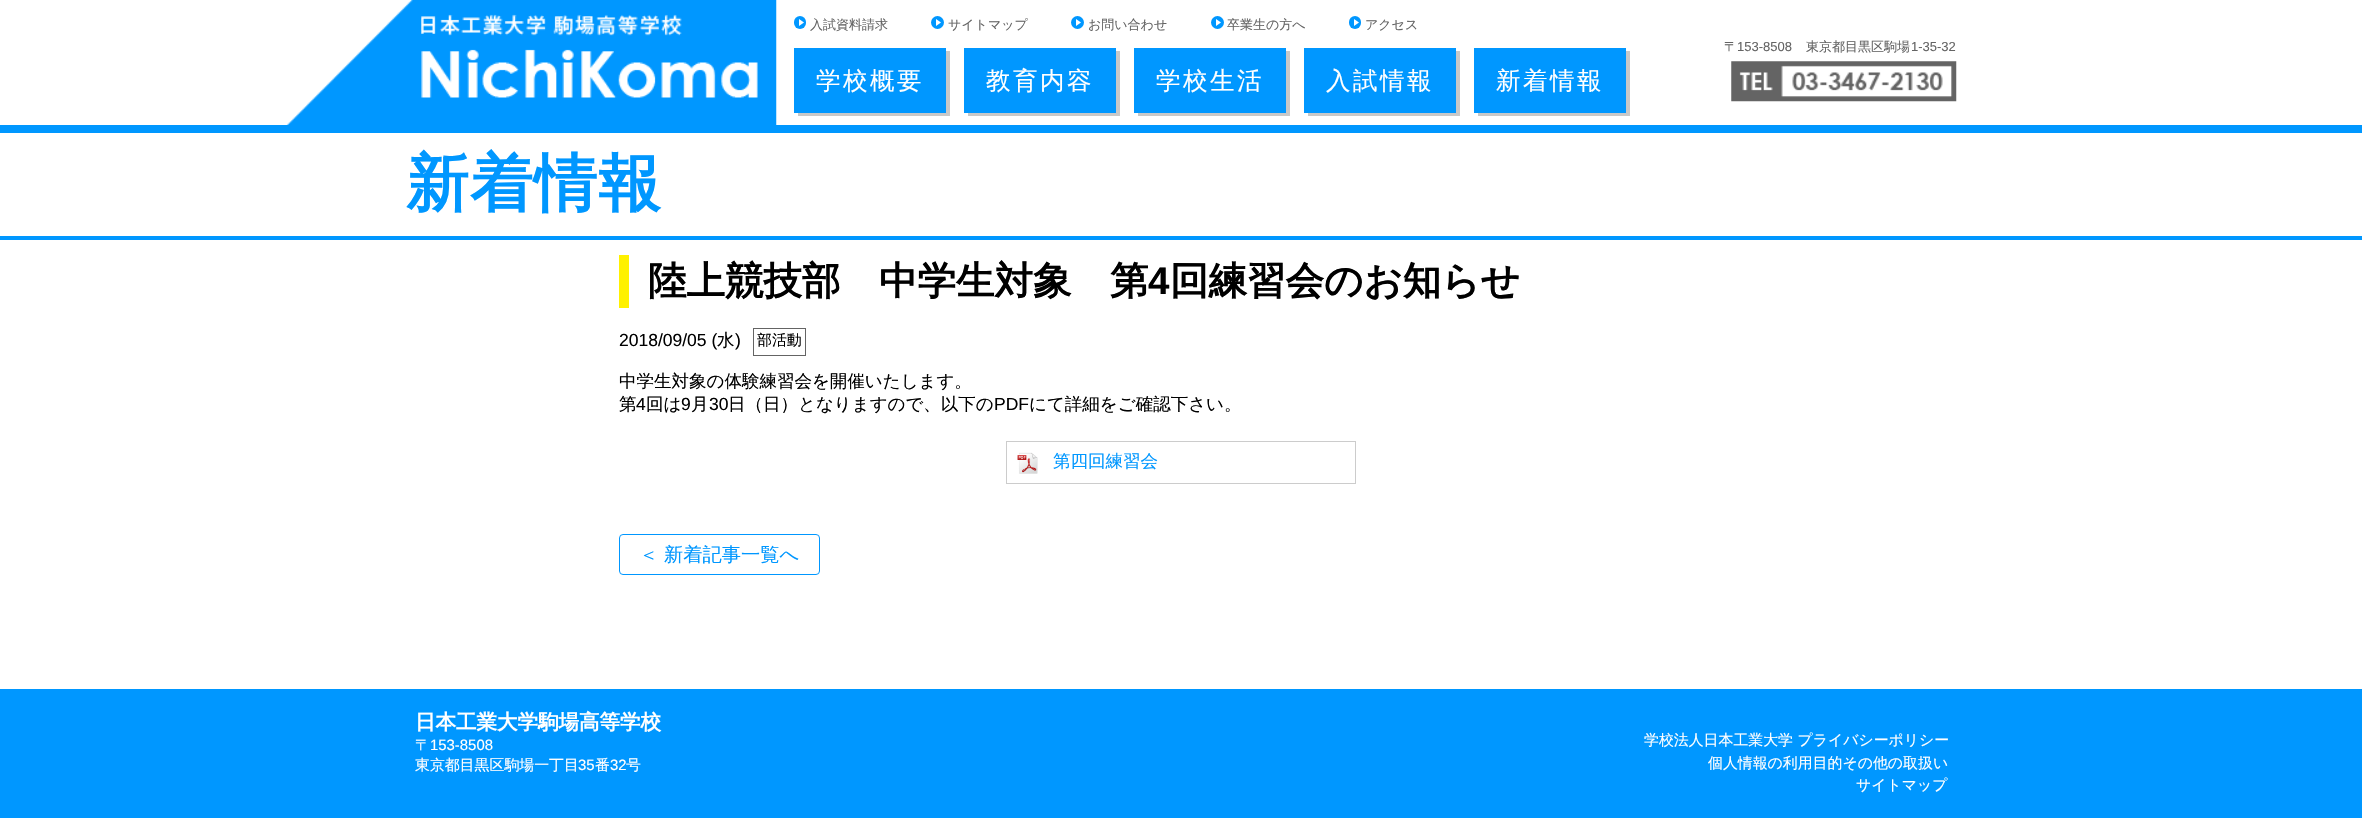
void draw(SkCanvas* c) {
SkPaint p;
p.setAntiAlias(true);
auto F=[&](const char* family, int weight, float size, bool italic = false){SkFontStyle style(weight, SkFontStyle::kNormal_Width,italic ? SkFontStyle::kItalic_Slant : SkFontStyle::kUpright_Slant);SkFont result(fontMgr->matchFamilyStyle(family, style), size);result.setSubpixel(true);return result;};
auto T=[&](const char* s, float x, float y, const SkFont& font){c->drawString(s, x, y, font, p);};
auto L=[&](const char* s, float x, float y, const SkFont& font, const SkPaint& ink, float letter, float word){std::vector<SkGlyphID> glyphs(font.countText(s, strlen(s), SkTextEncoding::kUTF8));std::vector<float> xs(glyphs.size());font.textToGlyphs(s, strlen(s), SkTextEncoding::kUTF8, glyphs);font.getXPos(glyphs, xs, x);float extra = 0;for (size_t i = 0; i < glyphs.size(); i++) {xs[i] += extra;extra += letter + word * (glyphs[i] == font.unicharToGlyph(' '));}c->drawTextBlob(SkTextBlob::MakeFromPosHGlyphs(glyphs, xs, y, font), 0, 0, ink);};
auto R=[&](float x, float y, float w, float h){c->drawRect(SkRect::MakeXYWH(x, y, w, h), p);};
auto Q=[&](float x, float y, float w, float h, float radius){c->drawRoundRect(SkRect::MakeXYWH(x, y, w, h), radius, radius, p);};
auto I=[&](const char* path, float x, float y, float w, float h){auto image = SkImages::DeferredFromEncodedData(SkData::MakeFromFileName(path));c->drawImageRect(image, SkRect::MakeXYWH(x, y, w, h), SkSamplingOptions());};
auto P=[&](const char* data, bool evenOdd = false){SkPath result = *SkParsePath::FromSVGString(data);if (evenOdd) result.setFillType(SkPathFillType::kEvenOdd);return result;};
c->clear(0xffffffff);
p.setColor(0xff0097ff);
R(0,125,2362,8);
I("1.png",286,0,491,125);
Q(794,16,12,13,6);
p.setColor(0xffffffff);
c->drawPath(P("M799 26v-7l5 3.5z"),p);
auto f1 = F("WenQuanYi Zen Hei",500,13);
p.setColor(0xff646464);
T("入試資料請求",810,29,f1);
p.setColor(0xff0097ff);
c->drawCircle(937.5,22.5,6.5,p);
p.setColor(0xffffffff);
c->drawPath(P("M936 26v-7l5 3.5z"),p);
p.setColor(0xff646464);
T("サイトマップ",948,29,f1);
p.setColor(0xff0097ff);
c->drawCircle(1077.5,22.5,6.5,p);
p.setColor(0xffffffff);
c->drawPath(P("M1076 26v-7l5 3.5z"),p);
p.setColor(0xff646464);
T("お問い合わせ",1088,29,f1);
p.setColor(0xff0097ff);
c->drawCircle(1217.5,22.5,6.5,p);
p.setColor(0xffffffff);
c->drawPath(P("M1216 26v-7l5 3.5z"),p);
p.setColor(0xff646464);
T("卒業生の方へ",1227,29,f1);
p.setColor(0xff0097ff);
Q(1349,16,12,13,6);
p.setColor(0xffffffff);
c->drawPath(P("M1354 26v-7l5 3.5z"),p);
p.setColor(0xff646464);
T("アクセス",1365,29,f1);
T("〒",1724,51,f1);
auto f2 = F("Liberation Sans",400,13);
T("153-8508",1737,51,f2);
T("東京都目黒区駒場",1806,51,f1);
T("1-35-32",1911,51,f2);
I("2.png",1731,61,226,41);
p.setColor(0xffc8c8c8);
c->drawPath(P("M798 112v4h152v-65h-4v61z"),p);
p.setColor(0xff0097ff);
R(794,48,152,65);
auto f3 = F("WenQuanYi Zen Hei",500,24.5);
p.setColor(0xffffffff);
L("学校概要",816,89,f3,p,2.5,0);
p.setColor(0xffc8c8c8);
c->drawPath(P("M968 112v4h152v-65h-4v61z"),p);
p.setColor(0xff0097ff);
R(964,48,152,65);
p.setColor(0xffffffff);
L("教育内容",986,89,f3,p,2.5,0);
p.setColor(0xffc8c8c8);
c->drawPath(P("M1138 112v4h152v-65h-4v61z"),p);
p.setColor(0xff0097ff);
R(1134,48,152,65);
p.setColor(0xffffffff);
L("学校生活",1156,89,f3,p,2.5,0);
p.setColor(0xffc8c8c8);
c->drawPath(P("M1308 112v4h152v-65h-4v61z"),p);
p.setColor(0xff0097ff);
R(1304,48,152,65);
p.setColor(0xffffffff);
L("入試情報",1326,89,f3,p,2.5,0);
p.setColor(0xffc8c8c8);
c->drawPath(P("M1478 112v4h152v-65h-4v61z"),p);
p.setColor(0xff0097ff);
R(1474,48,152,65);
p.setColor(0xffffffff);
L("新着情報",1496,89,f3,p,2.5,0);
p.setColor(0xff0097ff);
R(0,236,2362,4);
auto f4 = F("WenQuanYi Zen Hei",700,63);
L("新着情報",406,205,f4,p,1,0);
p.setColor(0xfffff100);
R(619,255,10,53);
auto f5 = F("WenQuanYi Zen Hei",700,38.5);
p.setColor(0xff000000);
T("陸上競技部　中学生対象　第",648,294,f5);
auto f6 = F("Liberation Sans",700,38.5);
T("4",1148,294,f6);
T("回練習会のお知らせ",1170,294,f5);
auto f7 = F("Liberation Sans",400,17.5);
T("2018/09/05 (",619,346,f7);
auto f8 = F("WenQuanYi Zen Hei",500,17.5);
T("水",717,346,f8);
T(")",735,346,f7);
p.setStroke(true);
p.setStrokeWidth(1);
p.setColor(0xff646464);
c->drawRect(SkRect::MakeXYWH(753.5,328.5,52,27),p);
auto f9 = F("WenQuanYi Zen Hei",500,14.9);
p.setStroke(false);
p.setColor(0xff000000);
T("部活動",757,345,f9);
T("中学生対象の体験練習会を開催いたします。",619,387,f8);
T("第",619,410,f8);
T("4",636,410,f7);
T("回は",646,410,f8);
T("9",681,410,f7);
T("月",691,410,f8);
T("30",709,410,f7);
T("日（日）となりますので、以下の",728,410,f8);
T("PDF",994,410,f7);
T("にて詳細をご確認下さい。",1029,410,f8);
I("3.png",1017,452,21,22);
p.setStroke(true);
p.setColor(0xffcccccc);
c->drawRect(SkRect::MakeXYWH(1006.5,441.5,349,42),p);
p.setStroke(false);
p.setColor(0xff0097ff);
T("第四回練習会",1053,467,f8);
p.setStroke(true);
c->drawRoundRect(SkRect::MakeXYWH(619.5,534.5,200,40),3.5,3.5,p);
auto f10 = F("WenQuanYi Zen Hei",500,19.25);
p.setStroke(false);
T("＜ 新着記事一覧へ",639,561,f10);
R(0,689,2362,129);
auto f11 = F("WenQuanYi Zen Hei",700,20.5);
p.setColor(0xffffffff);
T("日本工業大学駒場高等学校",415,729,f11);
T("〒",415,750,f9);
auto f12 = F("Liberation Sans",400,14.9);
T("153-8508",430,750,f12);
T("東京都目黒区駒場一丁目",415,770,f9);
T("35",578,770,f12);
T("番",595,770,f9);
T("32",610,770,f12);
T("号",626,770,f9);
T("学校法人日本工業大学 プライバシーポリシー",1644,745,f9);
T("個人情報の利用目的その他の取扱い",1708,768,f9);
T("サイトマップ",1856,790,f9);
}
